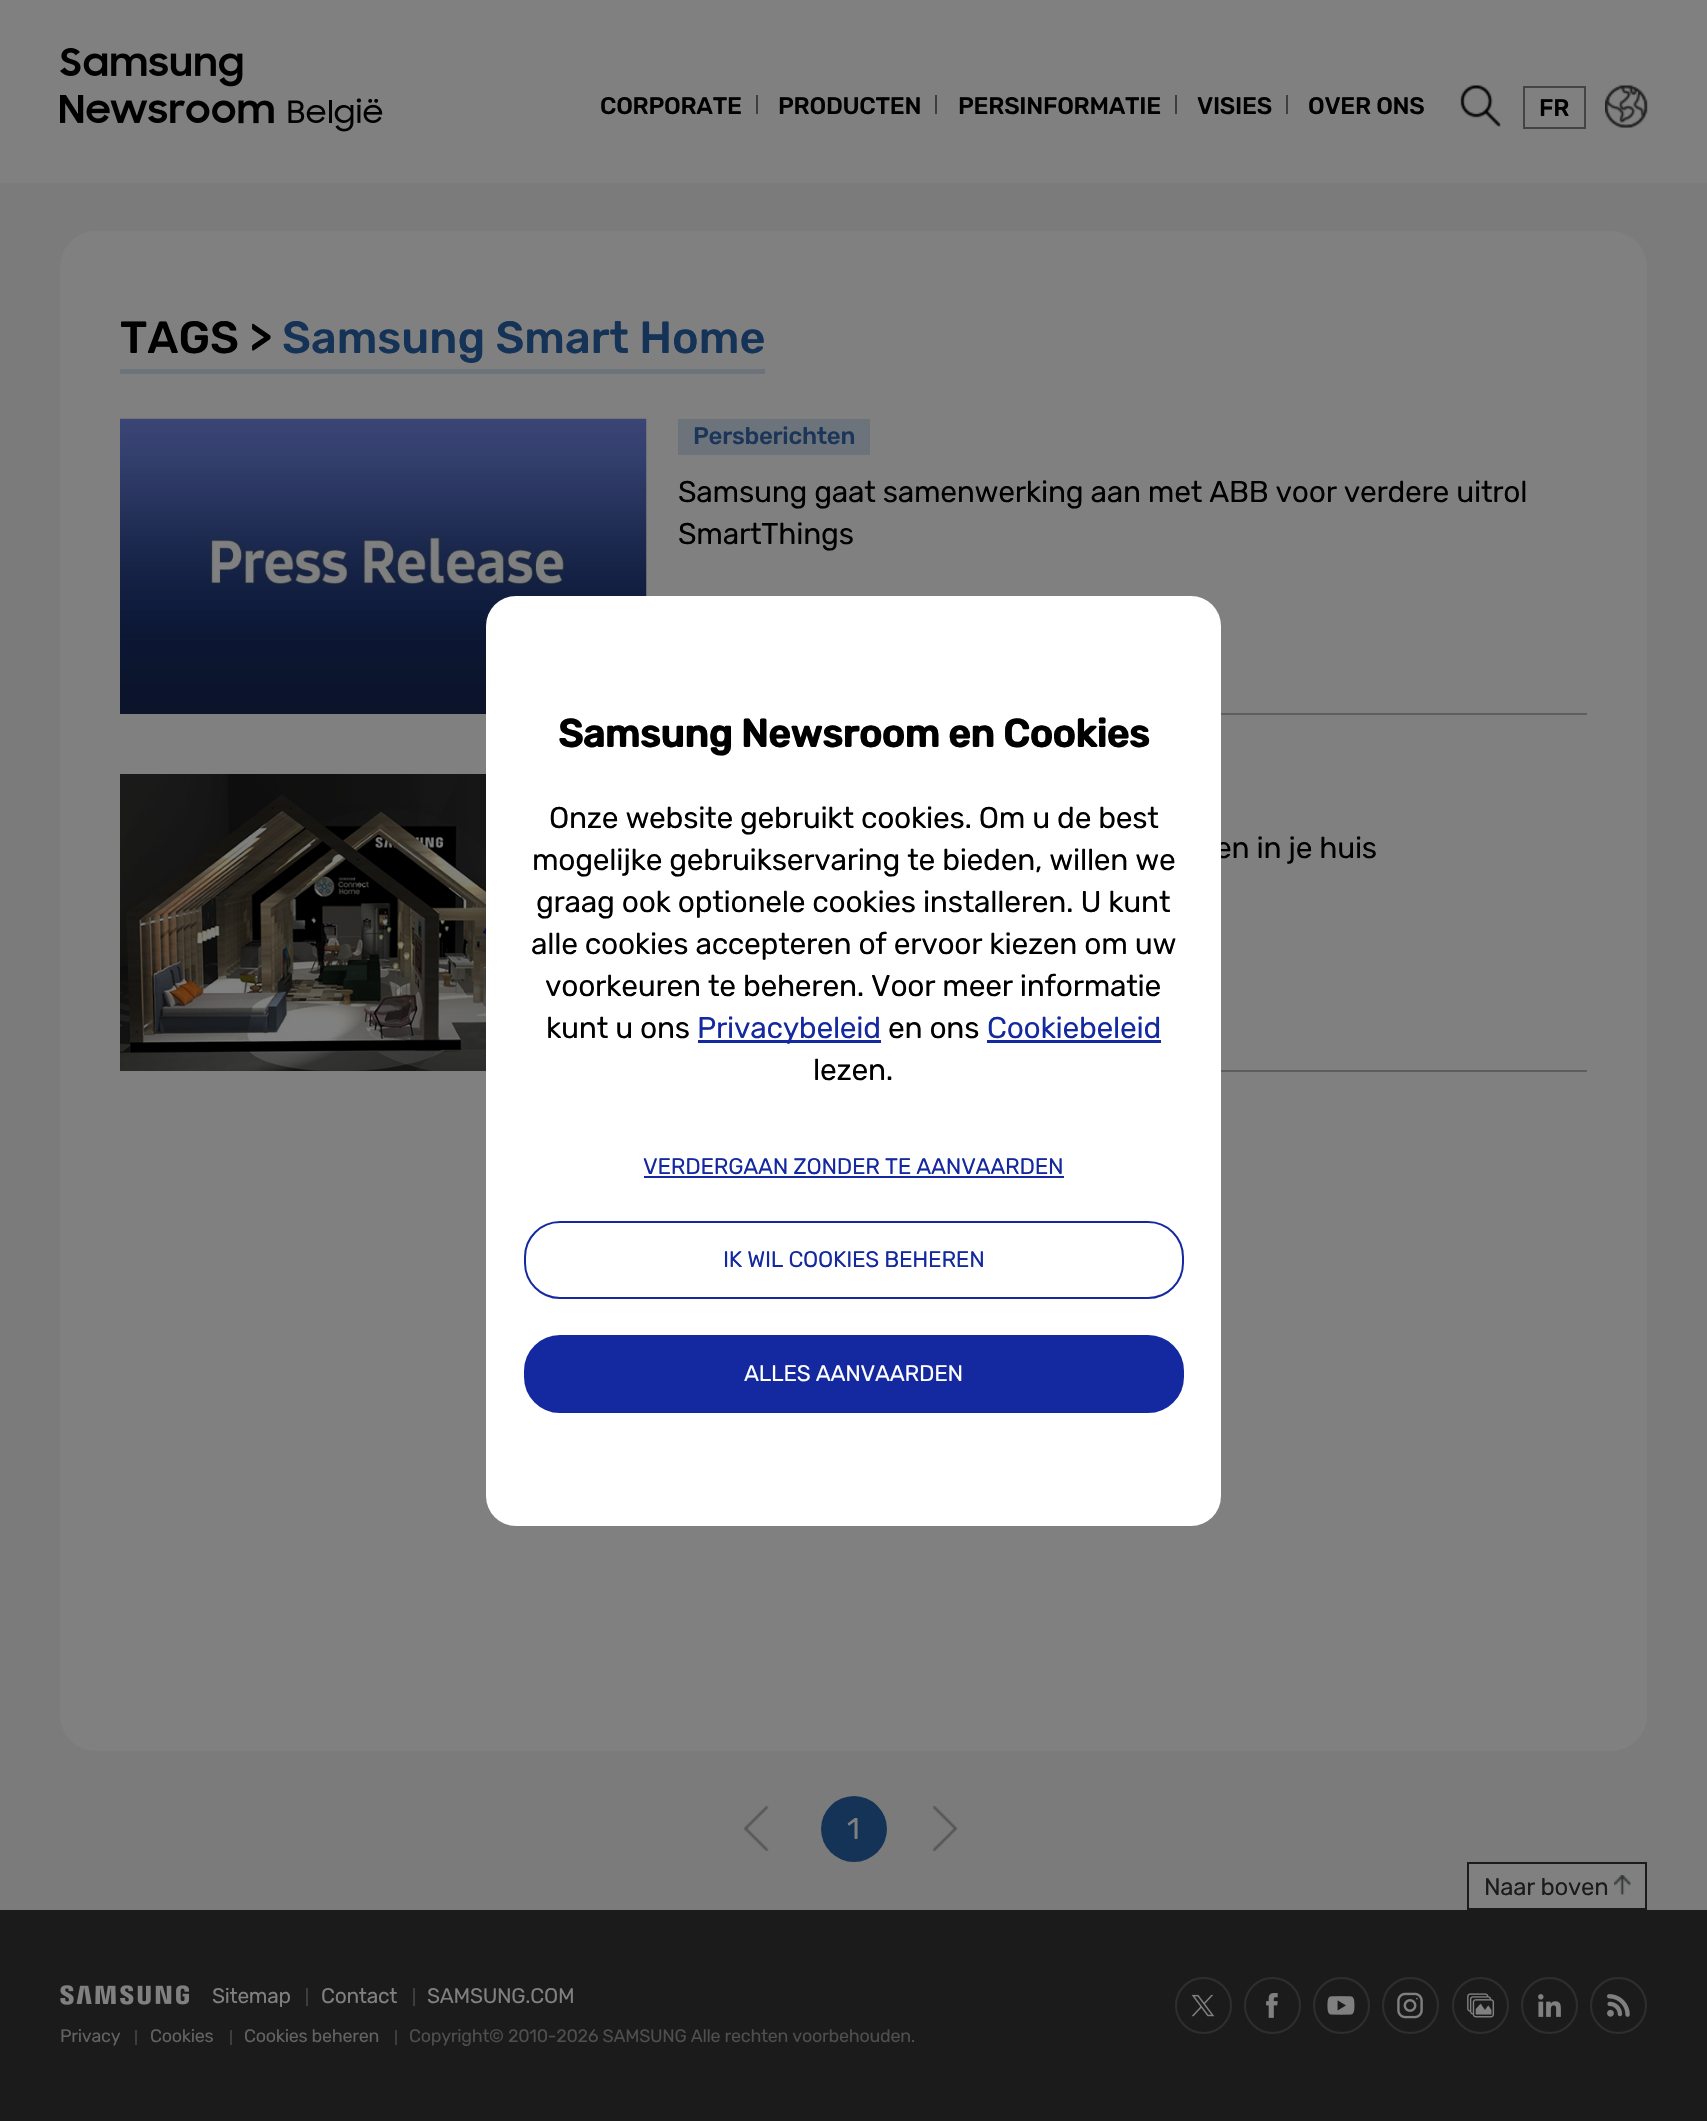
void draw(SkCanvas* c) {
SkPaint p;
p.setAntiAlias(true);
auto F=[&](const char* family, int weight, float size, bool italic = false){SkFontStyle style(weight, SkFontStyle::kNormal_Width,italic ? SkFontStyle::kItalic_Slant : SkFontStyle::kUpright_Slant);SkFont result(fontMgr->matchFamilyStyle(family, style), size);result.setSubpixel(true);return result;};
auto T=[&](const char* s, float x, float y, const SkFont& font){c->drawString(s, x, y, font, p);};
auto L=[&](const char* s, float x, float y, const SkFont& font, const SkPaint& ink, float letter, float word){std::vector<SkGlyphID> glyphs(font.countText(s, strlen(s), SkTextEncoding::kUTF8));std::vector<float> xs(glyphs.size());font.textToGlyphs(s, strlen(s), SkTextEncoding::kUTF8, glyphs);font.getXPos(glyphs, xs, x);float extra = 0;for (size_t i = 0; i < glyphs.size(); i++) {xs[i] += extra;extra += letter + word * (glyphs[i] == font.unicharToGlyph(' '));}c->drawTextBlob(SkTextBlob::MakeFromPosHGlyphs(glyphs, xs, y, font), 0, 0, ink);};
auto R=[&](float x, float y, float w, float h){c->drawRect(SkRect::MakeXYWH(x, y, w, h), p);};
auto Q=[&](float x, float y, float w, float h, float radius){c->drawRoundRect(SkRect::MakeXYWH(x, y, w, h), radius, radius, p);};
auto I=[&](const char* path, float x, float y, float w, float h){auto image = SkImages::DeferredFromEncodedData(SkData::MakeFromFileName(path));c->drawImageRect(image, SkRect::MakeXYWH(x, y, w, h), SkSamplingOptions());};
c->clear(0xff808080);
I("1.png",60,48,323,84);
auto f1 = F("Rubik",500,24);
p.setColor(0xff000000);
L("CORPORATE",600,114,f1,p,-.27,0);
p.setColor(0xff3e3e3e);
R(756,95,2,19);
p.setColor(0xff000000);
L("PRODUCTEN",778,114,f1,p,-.27,0);
p.setColor(0xff3e3e3e);
R(935,95,2,19);
p.setColor(0xff000000);
L("PERSINFORMATIE",958,114,f1,p,-.27,0);
p.setColor(0xff3e3e3e);
R(1175,95,2,19);
p.setColor(0xff000000);
L("VISIES",1197,114,f1,p,-.27,0);
p.setColor(0xff3e3e3e);
R(1286,95,2,19);
p.setColor(0xff000000);
L("OVER ONS",1308,114,f1,p,-.27,0);
I("2.png",1460,85,41,42);
p.setStroke(true);
p.setStrokeWidth(2);
p.setColor(0xff444444);
c->drawRect(SkRect::MakeXYWH(1524,87,61,41),p);
p.setStroke(false);
p.setColor(0xff000000);
L("FR",1539,116,f1,p,-.27,0);
I("3.png",1605,85,43,43);
p.setColor(0xff7b7b7b);
R(0,183,1707,1727);
p.setColor(0xff808080);
Q(60,231,1587,1520,36);
p.setColor(0xff6d737a);
R(120,369,645,5);
auto f2 = F("Rubik",500,45);
p.setColor(0xff000000);
T("TAGS >",120,353,f2);
p.setColor(0xff153257);
T("Samsung Smart Home",282,353,f2);
I("4.png",120,418,527,296);
p.setColor(0xff6d737a);
R(678,419,192,36);
p.setColor(0xff1b3659);
L("Persberichten",693,444,f1,p,-.27,0);
auto f3 = F("Rubik",400,30);
p.setColor(0xff000000);
L("Samsung gaat samenwerking aan met ABB voor verdere uitrol",678,502,f3,p,-.27,0);
L("SmartThings",678,544,f3,p,-.27,0);
p.setColor(0xff5e5e5e);
R(1221,713,366,2);
I("5.png",120,774,366,297);
p.setColor(0xff000000);
L("en in je huis",1215,858,f3,p,-.27,0);
p.setColor(0xff5e5e5e);
R(1221,1070,366,2);
I("6.png",744,1806,25,45);
p.setColor(0xff153257);
c->drawCircle(854,1829,33,p);
p.setColor(0xff808080);
L("1",847,1839,f3,p,-.27,0);
I("7.png",932,1806,26,45);
c->drawRect(SkRect::MakeXYWH(1468,1863,178,46),p);
p.setStroke(true);
p.setColor(0xff1b1b1b);
c->drawRect(SkRect::MakeXYWH(1468,1863,178,46),p);
auto f4 = F("Rubik",400,24);
p.setStroke(false);
L("Naar boven",1484,1895,f4,p,-.27,0);
I("8.png",1614,1875,17,20);
R(0,1910,1707,211);
I("9.png",60,1985,129,20);
auto f5 = F("Rubik",400,21);
p.setColor(0xff808080);
L("Sitemap",212,2003,f5,p,-.27,0);
p.setColor(0xff3d3d3d);
R(306,1988,2,18);
p.setColor(0xff808080);
L("Contact",321,2003,f5,p,-.27,0);
p.setColor(0xff3d3d3d);
R(413,1988,2,18);
p.setColor(0xff808080);
L("SAMSUNG.COM",427,2003,f5,p,-.27,0);
auto f6 = F("Rubik",400,18);
p.setColor(0xff626262);
L("Privacy",60,2042,f6,p,-.27,0);
p.setColor(0xff3d3d3d);
R(135,2030,2,15);
p.setColor(0xff626262);
L("Cookies",150,2042,f6,p,-.27,0);
p.setColor(0xff3d3d3d);
R(230,2030,2,15);
p.setColor(0xff626262);
L("Cookies beheren",244,2042,f6,p,-.27,0);
p.setColor(0xff3d3d3d);
R(395,2030,2,15);
p.setColor(0xff4e4e4e);
L("Copyright© 2010-2026 SAMSUNG Alle rechten voorbehouden.",409,2042,f6,p,-.27,0);
p.setStroke(true);
p.setColor(0xff2e2e2e);
c->drawCircle(1203.5,2005.5,27.5,p);
I("10.png",1191,1994,24,23);
c->drawCircle(1272.5,2005.5,27.5,p);
I("11.png",1266,1993,12,25);
c->drawCircle(1341.5,2005.5,27.5,p);
I("12.png",1327,1996,28,19);
c->drawCircle(1410.5,2005.5,27.5,p);
I("13.png",1397,1992,26,27);
c->drawCircle(1480.5,2005.5,27.5,p);
I("14.png",1467,1993,28,25);
c->drawCircle(1549.5,2005.5,27.5,p);
I("15.png",1538,1994,23,23);
c->drawCircle(1618.5,2005.5,27.5,p);
I("16.png",1607,1994,23,23);
p.setStroke(false);
p.setColor(0xffffffff);
Q(486,596,735,930,30);
auto f7 = F("Rubik",700,39);
p.setColor(0xff000000);
L("Samsung Newsroom en Cookies",558,747,f7,p,-.27,0);
L("Onze website gebruikt cookies. Om u de best",549,828,f3,p,-.27,0);
L("mogelijke gebruikservaring te bieden, willen we",532,870,f3,p,-.27,0);
L("graag ook optionele cookies installeren. U kunt",536,912,f3,p,-.27,0);
L("alle cookies accepteren of ervoor kiezen om uw",531,954,f3,p,-.27,0);
L("voorkeuren te beheren. Voor meer informatie",545,996,f3,p,-.27,0);
L("kunt u ons",546,1038,f3,p,-.27,0);
p.setColor(0xff1429a0);
R(698,1040,183,3);
L("Privacybeleid",697,1038,f3,p,-.27,0);
p.setColor(0xff000000);
L("en ons",888,1038,f3,p,-.27,0);
p.setColor(0xff1429a0);
L("Cookiebeleid",987,1038,f3,p,-.27,0);
R(987,1040,174,3);
p.setColor(0xff000000);
L("lezen.",813,1080,f3,p,-.27,0);
auto f8 = F("Rubik",400,22.5);
p.setColor(0xff1429a0);
L("VERDERGAAN ZONDER TE AANVAARDEN",643,1174,f8,p,-.27,0);
R(644,1176,420,2);
p.setStroke(true);
c->drawRoundRect(SkRect::MakeXYWH(525,1222,658,76),35,35,p);
p.setStroke(false);
L("IK WIL COOKIES BEHEREN",723,1267,f8,p,-.27,0);
p.setColor(0xff1428a0);
c->drawRoundRect(SkRect::MakeXYWH(525,1336,658,76),35,35,p);
p.setStroke(true);
p.setColor(0xff1429a0);
c->drawRoundRect(SkRect::MakeXYWH(525,1336,658,76),35,35,p);
p.setStroke(false);
p.setColor(0xffffffff);
L("ALLES AANVAARDEN",744,1381,f8,p,-.27,0);
}
